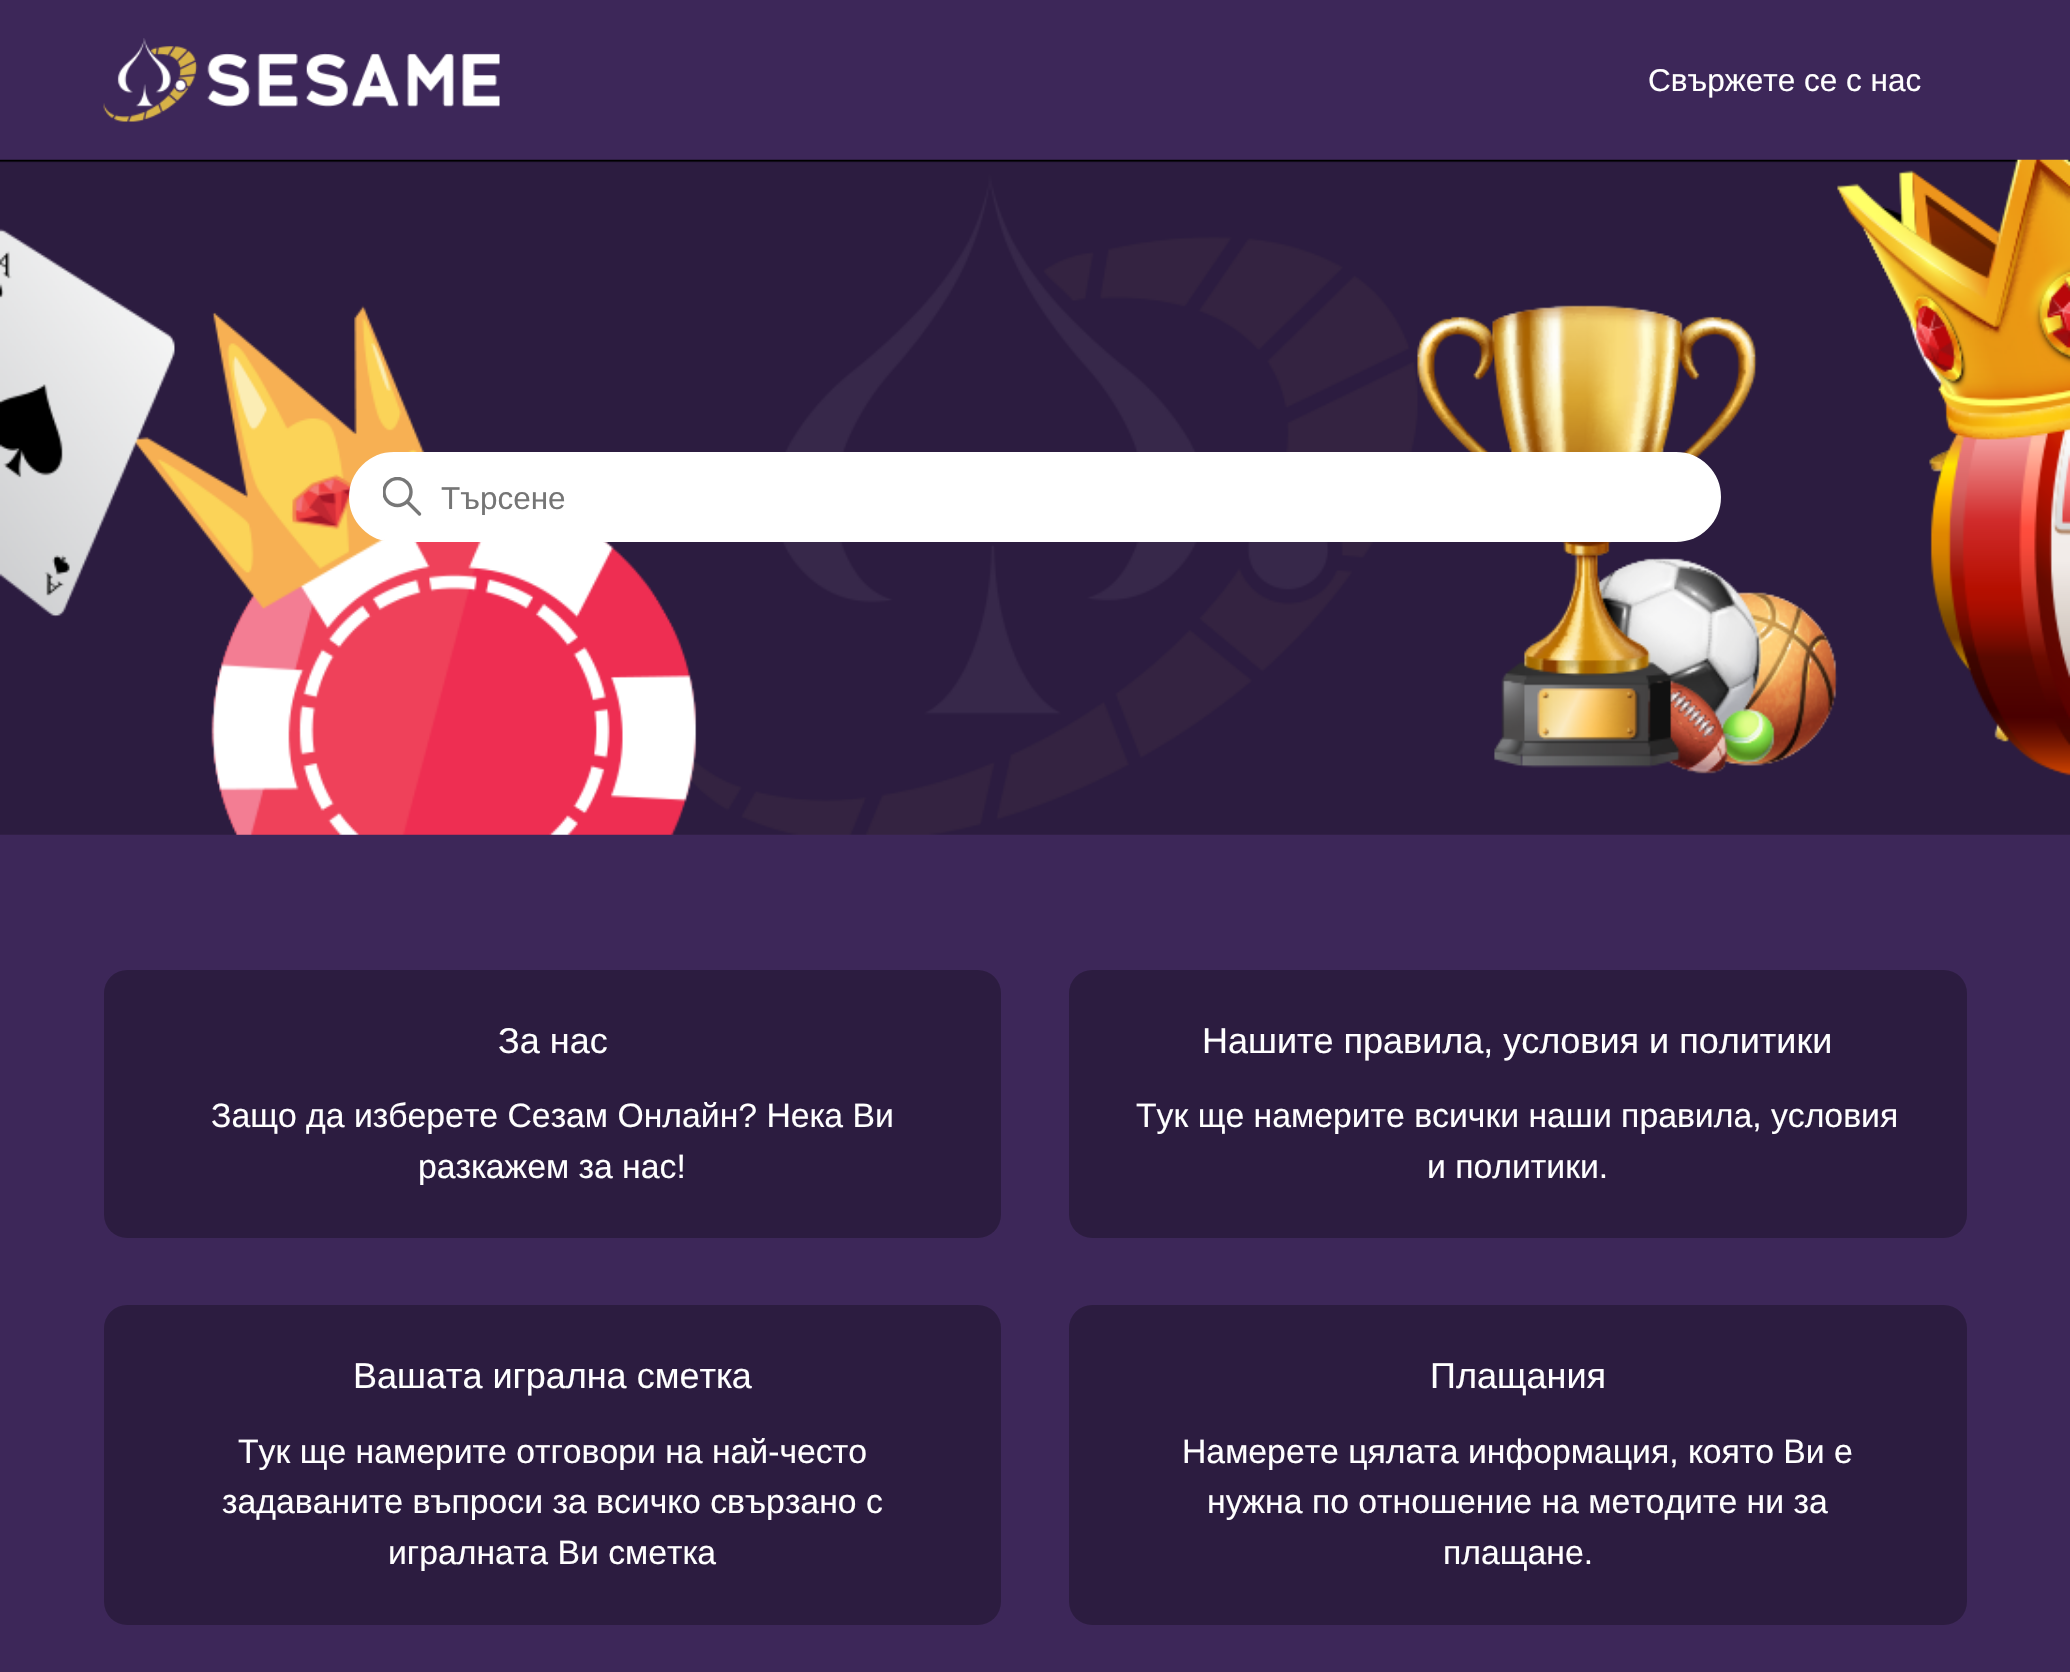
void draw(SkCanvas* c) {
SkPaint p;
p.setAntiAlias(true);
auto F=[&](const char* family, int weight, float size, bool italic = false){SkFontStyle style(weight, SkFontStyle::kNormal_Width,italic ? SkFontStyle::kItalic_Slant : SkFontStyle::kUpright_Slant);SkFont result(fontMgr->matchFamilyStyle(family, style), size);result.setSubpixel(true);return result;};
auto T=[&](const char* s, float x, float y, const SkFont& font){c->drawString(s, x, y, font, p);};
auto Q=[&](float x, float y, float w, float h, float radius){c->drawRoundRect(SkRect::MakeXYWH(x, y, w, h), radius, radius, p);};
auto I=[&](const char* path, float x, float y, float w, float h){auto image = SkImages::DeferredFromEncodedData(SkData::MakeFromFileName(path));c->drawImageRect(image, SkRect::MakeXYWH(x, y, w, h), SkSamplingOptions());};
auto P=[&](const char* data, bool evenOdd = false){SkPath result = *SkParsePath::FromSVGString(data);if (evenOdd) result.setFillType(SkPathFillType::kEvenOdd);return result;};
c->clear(0xff3d2759);
I("1.png",103,38,397,84);
auto f1 = F("Liberation Sans",400,31.5);
p.setColor(0xffffffff);
T("Свържете се с нас",1648,91,f1);
I("2.png",0,159,2070,676);
c->drawRoundRect(SkRect::MakeXYWH(350,453,1370,88),44,44,p);
p.setStroke(true);
p.setStrokeWidth(2);
c->drawRoundRect(SkRect::MakeXYWH(350,453,1370,88),44,44,p);
c->save();
c->clipRect(SkRect::MakeXYWH(383,477,40,41));
p.setStrokeWidth(3.4);
p.setColor(0xff777777);
c->drawCircle(397.5,492,13.5,p);
c->restore();
p.setStrokeCap(SkPaint::kRound_Cap);
c->drawPath(P("M419.5 514l-11.5-11.5"),p);
c->save();
c->clipRect(SkRect::MakeXYWH(441,479,1202,36));
p.setStroke(false);
p.setColor(0xff757575);
T("Търсене",441,509,f1);
c->restore();
p.setColor(0xff2c1c40);
Q(104,970,897,268,23);
auto f2 = F("Liberation Sans",400,36);
p.setColor(0xffffffff);
T("За нас",498,1053,f2);
auto f3 = F("Liberation Sans",400,33.75);
T("Защо да изберете Сезам Онлайн? Нека Ви",211,1127,f3);
T("разкажем за нас!",418,1178,f3);
p.setColor(0xff2c1c40);
Q(1069,970,898,268,23);
p.setColor(0xffffffff);
T("Нашите правила, условия и политики",1202,1053,f2);
T("Тук ще намерите всички наши правила, условия",1136,1127,f3);
T("и политики.",1427,1178,f3);
p.setColor(0xff2c1c40);
Q(104,1305,897,320,23);
p.setColor(0xffffffff);
T("Вашата игрална сметка",353,1388,f2);
T("Тук ще намерите отговори на най-често",238,1463,f3);
T("задаваните въпроси за всичко свързано с",222,1513,f3);
T("игралната Ви сметка",388,1564,f3);
p.setColor(0xff2c1c40);
Q(1069,1305,898,320,23);
p.setColor(0xffffffff);
T("Плащания",1430,1388,f2);
T("Намерете цялата информация, която Ви е",1182,1463,f3);
T("нужна по отношение на методите ни за",1207,1513,f3);
T("плащане.",1443,1564,f3);
}
